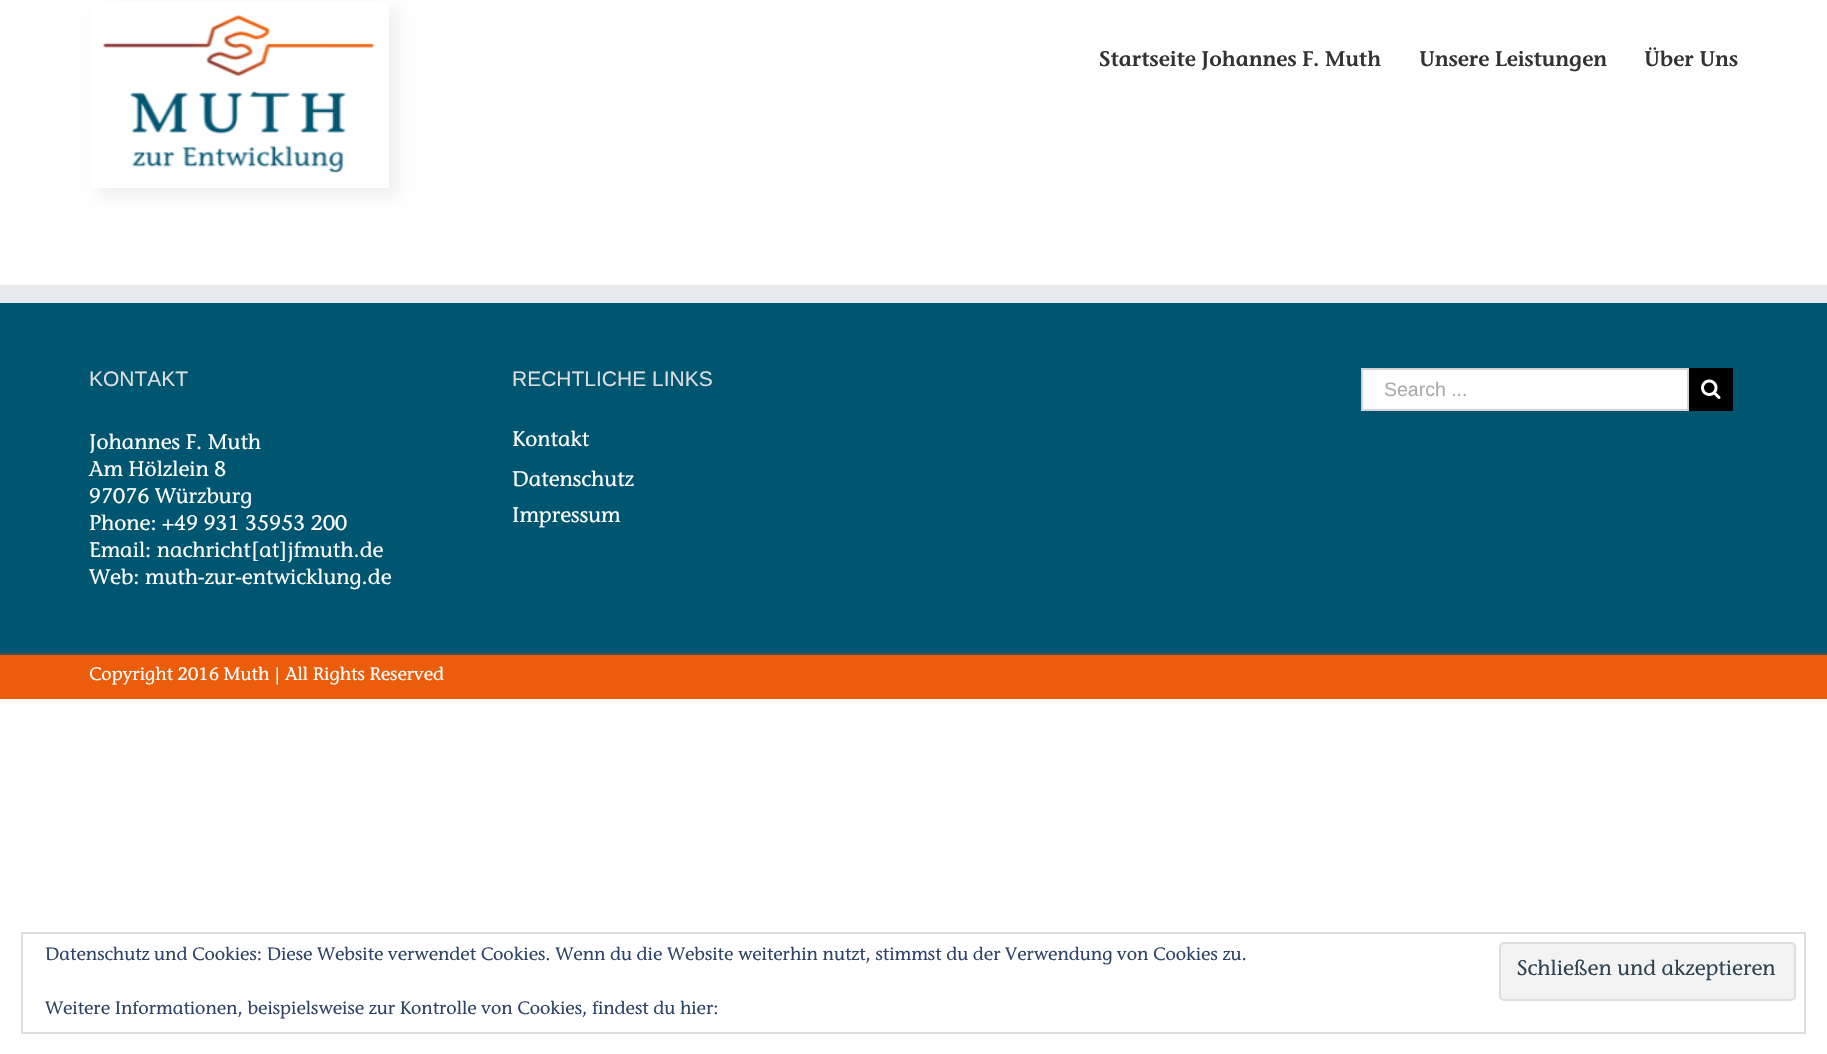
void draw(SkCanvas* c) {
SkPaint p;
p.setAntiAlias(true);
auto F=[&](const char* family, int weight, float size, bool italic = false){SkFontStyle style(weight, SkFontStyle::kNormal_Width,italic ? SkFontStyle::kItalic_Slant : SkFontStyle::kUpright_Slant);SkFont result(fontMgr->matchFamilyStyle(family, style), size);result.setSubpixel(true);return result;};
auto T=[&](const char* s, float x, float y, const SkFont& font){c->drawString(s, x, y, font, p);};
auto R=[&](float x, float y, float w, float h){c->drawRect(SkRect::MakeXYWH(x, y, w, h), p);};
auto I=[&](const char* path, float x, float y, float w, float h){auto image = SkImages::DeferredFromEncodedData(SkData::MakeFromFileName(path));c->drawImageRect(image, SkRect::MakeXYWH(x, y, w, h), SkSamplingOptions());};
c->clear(0xffffffff);
p.setColor(0xfff0f0f0);
p.setMaskFilter(SkMaskFilter::MakeBlur(kNormal_SkBlurStyle, 7.5));
c->drawRect(SkRect::MakeXYWH(98,9,300,188),p);
p.setMaskFilter(nullptr);
p.setColor(0xffffffff);
R(91,2,298,186);
I("1.png",102,14,273,159);
auto f1 = F("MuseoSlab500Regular",400,21);
p.setColor(0xff333333);
T("Startseite Johannes F. Muth",1099,66,f1);
T("Unsere Leistungen",1419,66,f1);
T("Über Uns",1644,66,f1);
p.setColor(0xff005671);
R(0,303,1827,350);
p.setColor(0xffe9eaee);
R(0,285,1827,18);
auto f2 = F("Liberation Sans",400,21);
p.setColor(0xffdddddd);
T("KONTAKT",89,386,f2);
auto f3 = F("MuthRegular",500,21);
p.setColor(0xffffffff);
T("Johannes F. Muth",89,449,f3);
T("Am Hölzlein 8",89,476,f3);
T("97076 Würzburg",89,503,f3);
T("Phone: +49 931 35953 200",89,530,f3);
T("Email: nachricht[at]jfmuth.de",89,557,f3);
T("Web: muth-zur-entwicklung.de",89,584,f3);
p.setColor(0xffdddddd);
T("RECHTLICHE LINKS",512,386,f2);
p.setColor(0xffffffff);
T("Kontakt",512,446,f3);
T("Datenschutz",512,486,f3);
T("Impressum",512,522,f3);
c->drawRect(SkRect::MakeXYWH(1362,369,326,41),p);
p.setStroke(true);
p.setStrokeWidth(2);
p.setColor(0xffd2d2d2);
c->drawRect(SkRect::MakeXYWH(1362,369,326,41),p);
auto f4 = F("Liberation Sans",400,19.5);
p.setStroke(false);
p.setColor(0xffaaa9a9);
T("Search ...",1384,396,f4);
p.setColor(0xff000000);
R(1689,368,44,43);
I("2.png",1701,379,20,20);
p.setColor(0xffeb5d0b);
R(0,655,1827,44);
p.setColor(0xff4b4c4d);
R(0,653,1827,2);
auto f5 = F("MuthRegular",500,18);
p.setColor(0xffffffff);
T("Copyright 2016 Muth | All Rights Reserved",89,680,f5);
p.setStroke(true);
p.setColor(0xffdedede);
c->drawRect(SkRect::MakeXYWH(22,933,1783,100),p);
p.setStroke(false);
p.setColor(0xff2e4467);
T("Datenschutz und Cookies: Diese Website verwendet Cookies. Wenn du die Website weiterhin nutzt, stimmst du der Verwendung von Cookies zu.",45,960,f5);
p.setColor(0xfff3f3f3);
c->drawRoundRect(SkRect::MakeXYWH(1500,943,295,57),4,4,p);
p.setStroke(true);
p.setColor(0xffdedede);
c->drawRoundRect(SkRect::MakeXYWH(1500,943,295,57),4,4,p);
p.setStroke(false);
p.setColor(0xff2e4453);
T("Schließen und akzeptieren",1517,975,f3);
p.setColor(0xff2e4467);
T("Weitere Informationen, beispielsweise zur Kontrolle von Cookies, findest du hier:",45,1014,f5);
}
